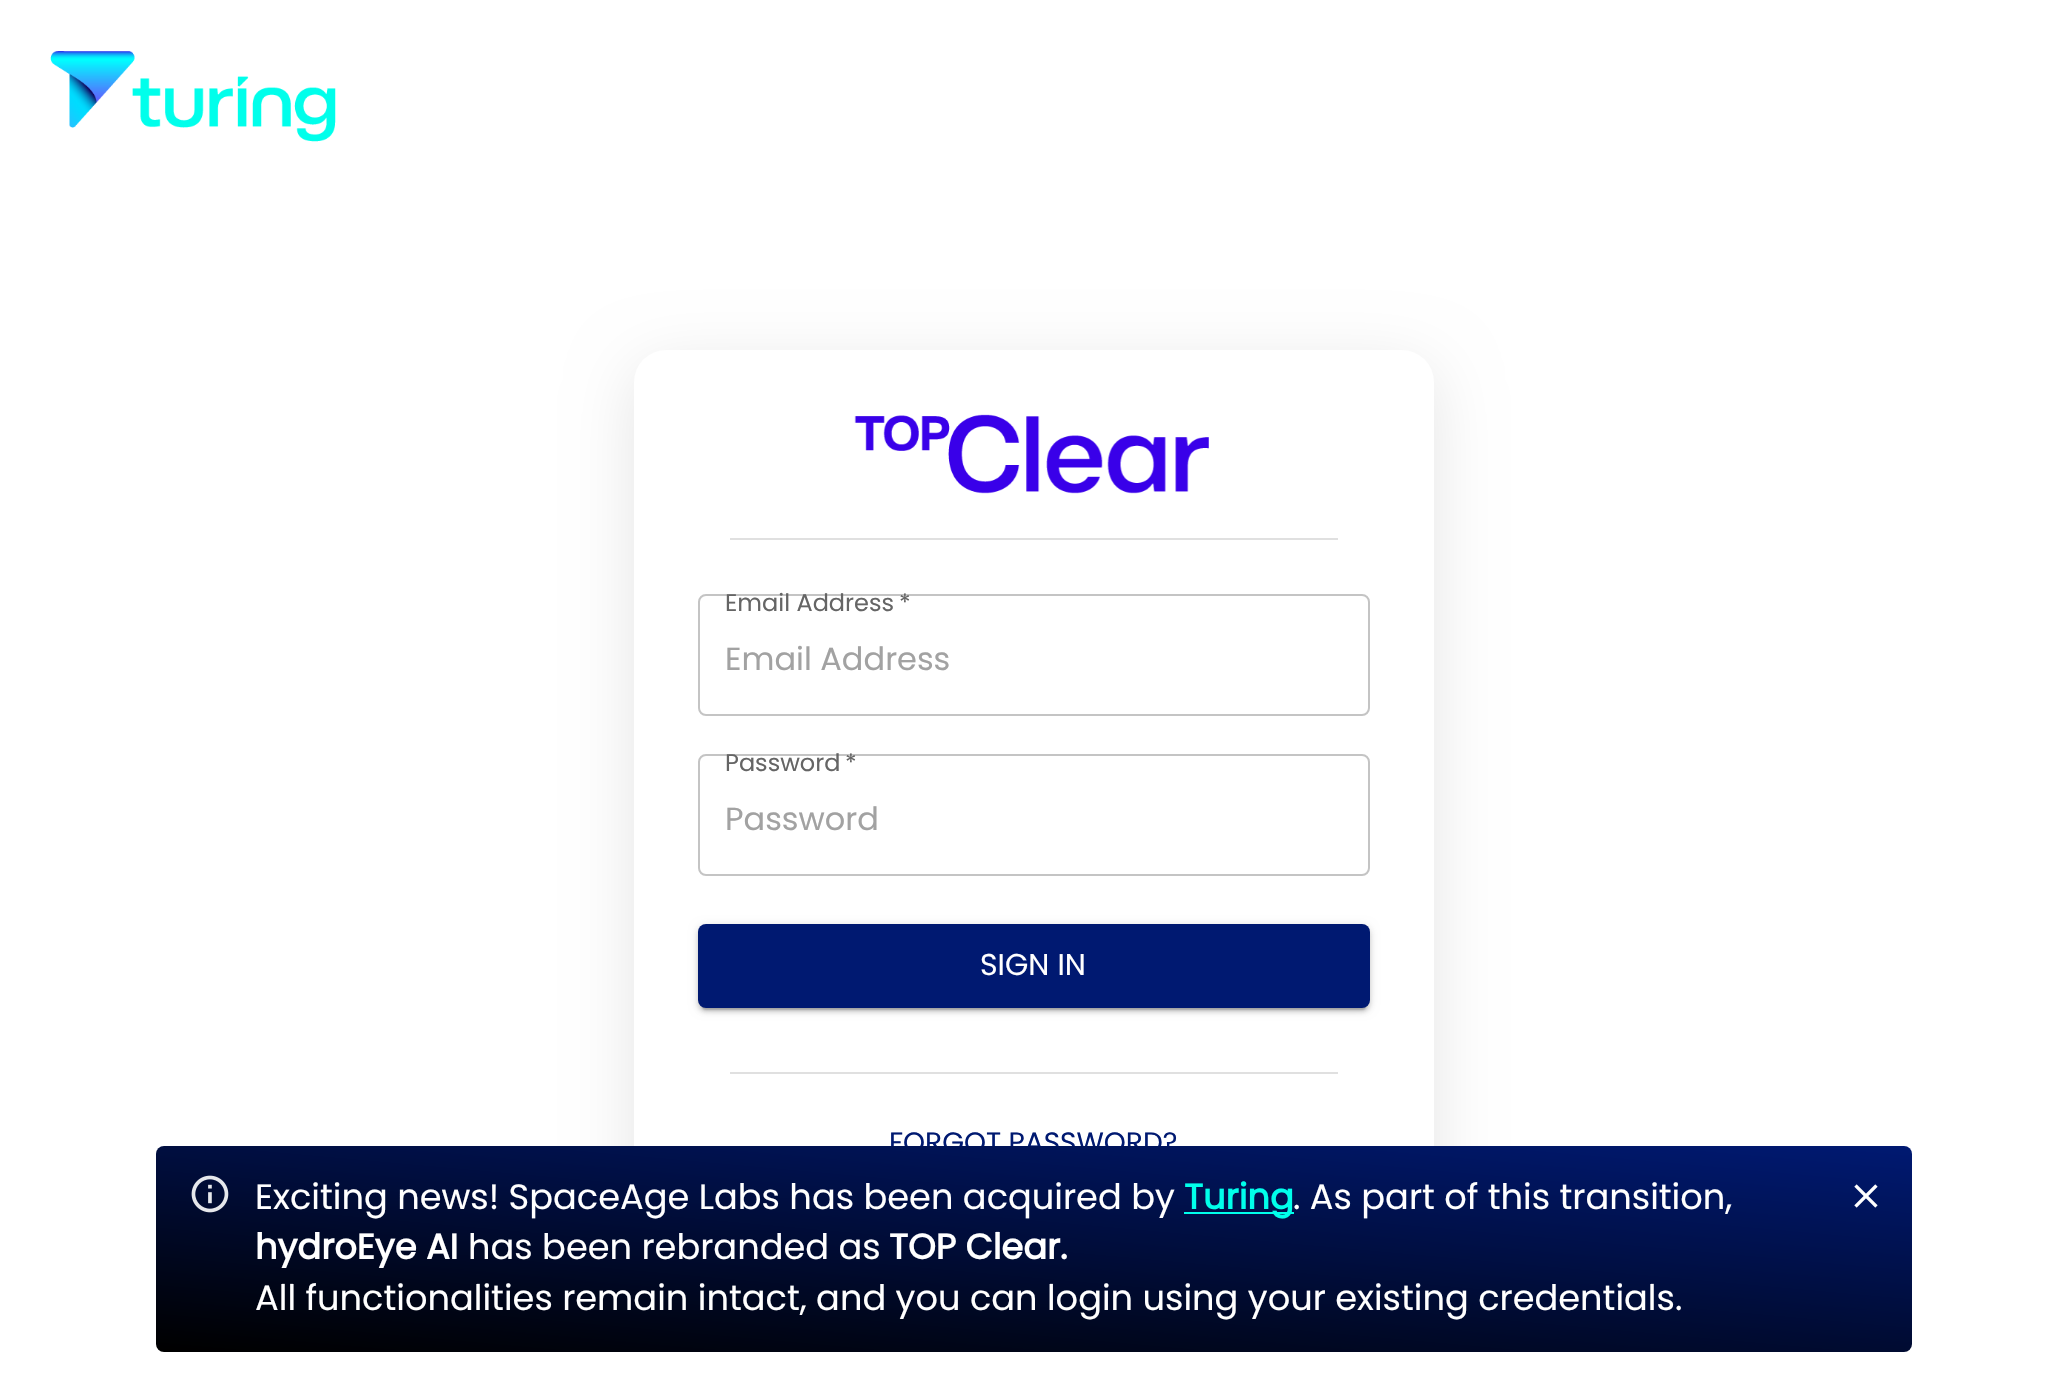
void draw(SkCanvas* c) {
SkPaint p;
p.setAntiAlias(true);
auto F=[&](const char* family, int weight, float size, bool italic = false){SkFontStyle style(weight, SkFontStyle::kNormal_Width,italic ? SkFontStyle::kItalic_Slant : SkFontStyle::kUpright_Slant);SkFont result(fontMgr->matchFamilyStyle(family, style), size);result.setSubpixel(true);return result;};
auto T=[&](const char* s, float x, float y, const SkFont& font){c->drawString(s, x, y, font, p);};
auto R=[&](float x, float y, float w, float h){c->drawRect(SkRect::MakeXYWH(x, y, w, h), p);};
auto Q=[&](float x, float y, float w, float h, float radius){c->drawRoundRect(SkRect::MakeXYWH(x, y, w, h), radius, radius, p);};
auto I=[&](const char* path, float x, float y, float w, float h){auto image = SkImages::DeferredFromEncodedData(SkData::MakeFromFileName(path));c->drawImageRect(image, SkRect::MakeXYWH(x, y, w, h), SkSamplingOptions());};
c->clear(0xffffffff);
I("1.png",50,51,286,91);
p.setColor(0x1a000000);
p.setMaskFilter(SkMaskFilter::MakeBlur(kNormal_SkBlurStyle, 32));
c->drawRoundRect(SkRect::MakeXYWH(634,366,800,892),32,32,p);
p.setMaskFilter(nullptr);
p.setColor(0xffffffff);
Q(634,350,800,892,32);
I("2.png",854,414,355,80);
p.setColor(0xffe0e0e0);
R(730,538,608,2);
p.setStroke(true);
p.setStrokeWidth(2);
p.setColor(0xffc4c4c4);
c->drawRoundRect(SkRect::MakeXYWH(699,595,670,120),7,7,p);
auto f1 = F("Poppins",400,24);
p.setStroke(false);
p.setColor(0xff656565);
T("Email Address",725,611,f1);
T("*",899,611,f1);
auto f2 = F("Poppins",400,32);
p.setColor(0xffa2a2a2);
T("Email Address",725,670,f2);
p.setStroke(true);
p.setColor(0xffc4c4c4);
c->drawRoundRect(SkRect::MakeXYWH(699,755,670,120),7,7,p);
p.setStroke(false);
p.setColor(0xff656565);
T("Password",725,771,f1);
T("*",845,771,f1);
p.setColor(0xffa2a2a2);
T("Password",725,830,f2);
p.setColor(0x1f000000);
p.setMaskFilter(SkMaskFilter::MakeBlur(kNormal_SkBlurStyle, 5));
c->drawRoundRect(SkRect::MakeXYWH(698,926,672,84),8,8,p);
p.setMaskFilter(nullptr);
p.setColor(0x24000000);
p.setMaskFilter(SkMaskFilter::MakeBlur(kNormal_SkBlurStyle, 2));
c->drawRoundRect(SkRect::MakeXYWH(698,928,672,84),8,8,p);
p.setMaskFilter(nullptr);
p.setColor(0x33000000);
p.setMaskFilter(SkMaskFilter::MakeBlur(kNormal_SkBlurStyle, 1));
c->drawRoundRect(SkRect::MakeXYWH(702,934,664,76),4,4,p);
p.setMaskFilter(nullptr);
p.setColor(0xff001971);
Q(698,924,672,84,8);
auto f3 = F("Poppins",400,30);
p.setColor(0xffffffff);
T("SIGN IN",980,975,f3);
p.setColor(0xffe0e0e0);
R(730,1072,608,2);
auto f4 = F("Poppins",400,28);
p.setColor(0xff001971);
T("FORGOT PASSWORD?",889,1152,f4);
{
const SkColor colors[] = {0xff000000,0xff001971};
const float stops[] = {0,1};
const SkPoint ends[] = {{1018,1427}, {1050,1071}};
p.setShader(SkGradientShader::MakeLinear(ends, colors, stops, 2, SkTileMode::kClamp));
p.setAlpha(255);
}
Q(156,1146,1756,206,8);
I("3.png",191,1175,38,38);
auto f5 = F("Poppins",400,35.2);
p.setShader(nullptr);
p.setColor(0xffffffff);
T("Exciting news! SpaceAge Labs has been acquired by",255,1209,f5);
p.setColor(0xff00ffeb);
R(1184,1212,110,2);
auto f6 = F("Poppins",700,35.2);
T("Turing",1184,1209,f6);
p.setColor(0xffffffff);
T(". As part of this transition,",1293,1209,f5);
T("hydroEye AI",255,1259,f6);
T("has been rebranded as",468,1259,f5);
T("TOP Clear.",889,1259,f6);
T("All functionalities remain intact, and you can login using your existing credentials.",255,1310,f5);
I("4.png",1854,1184,24,24);
}
